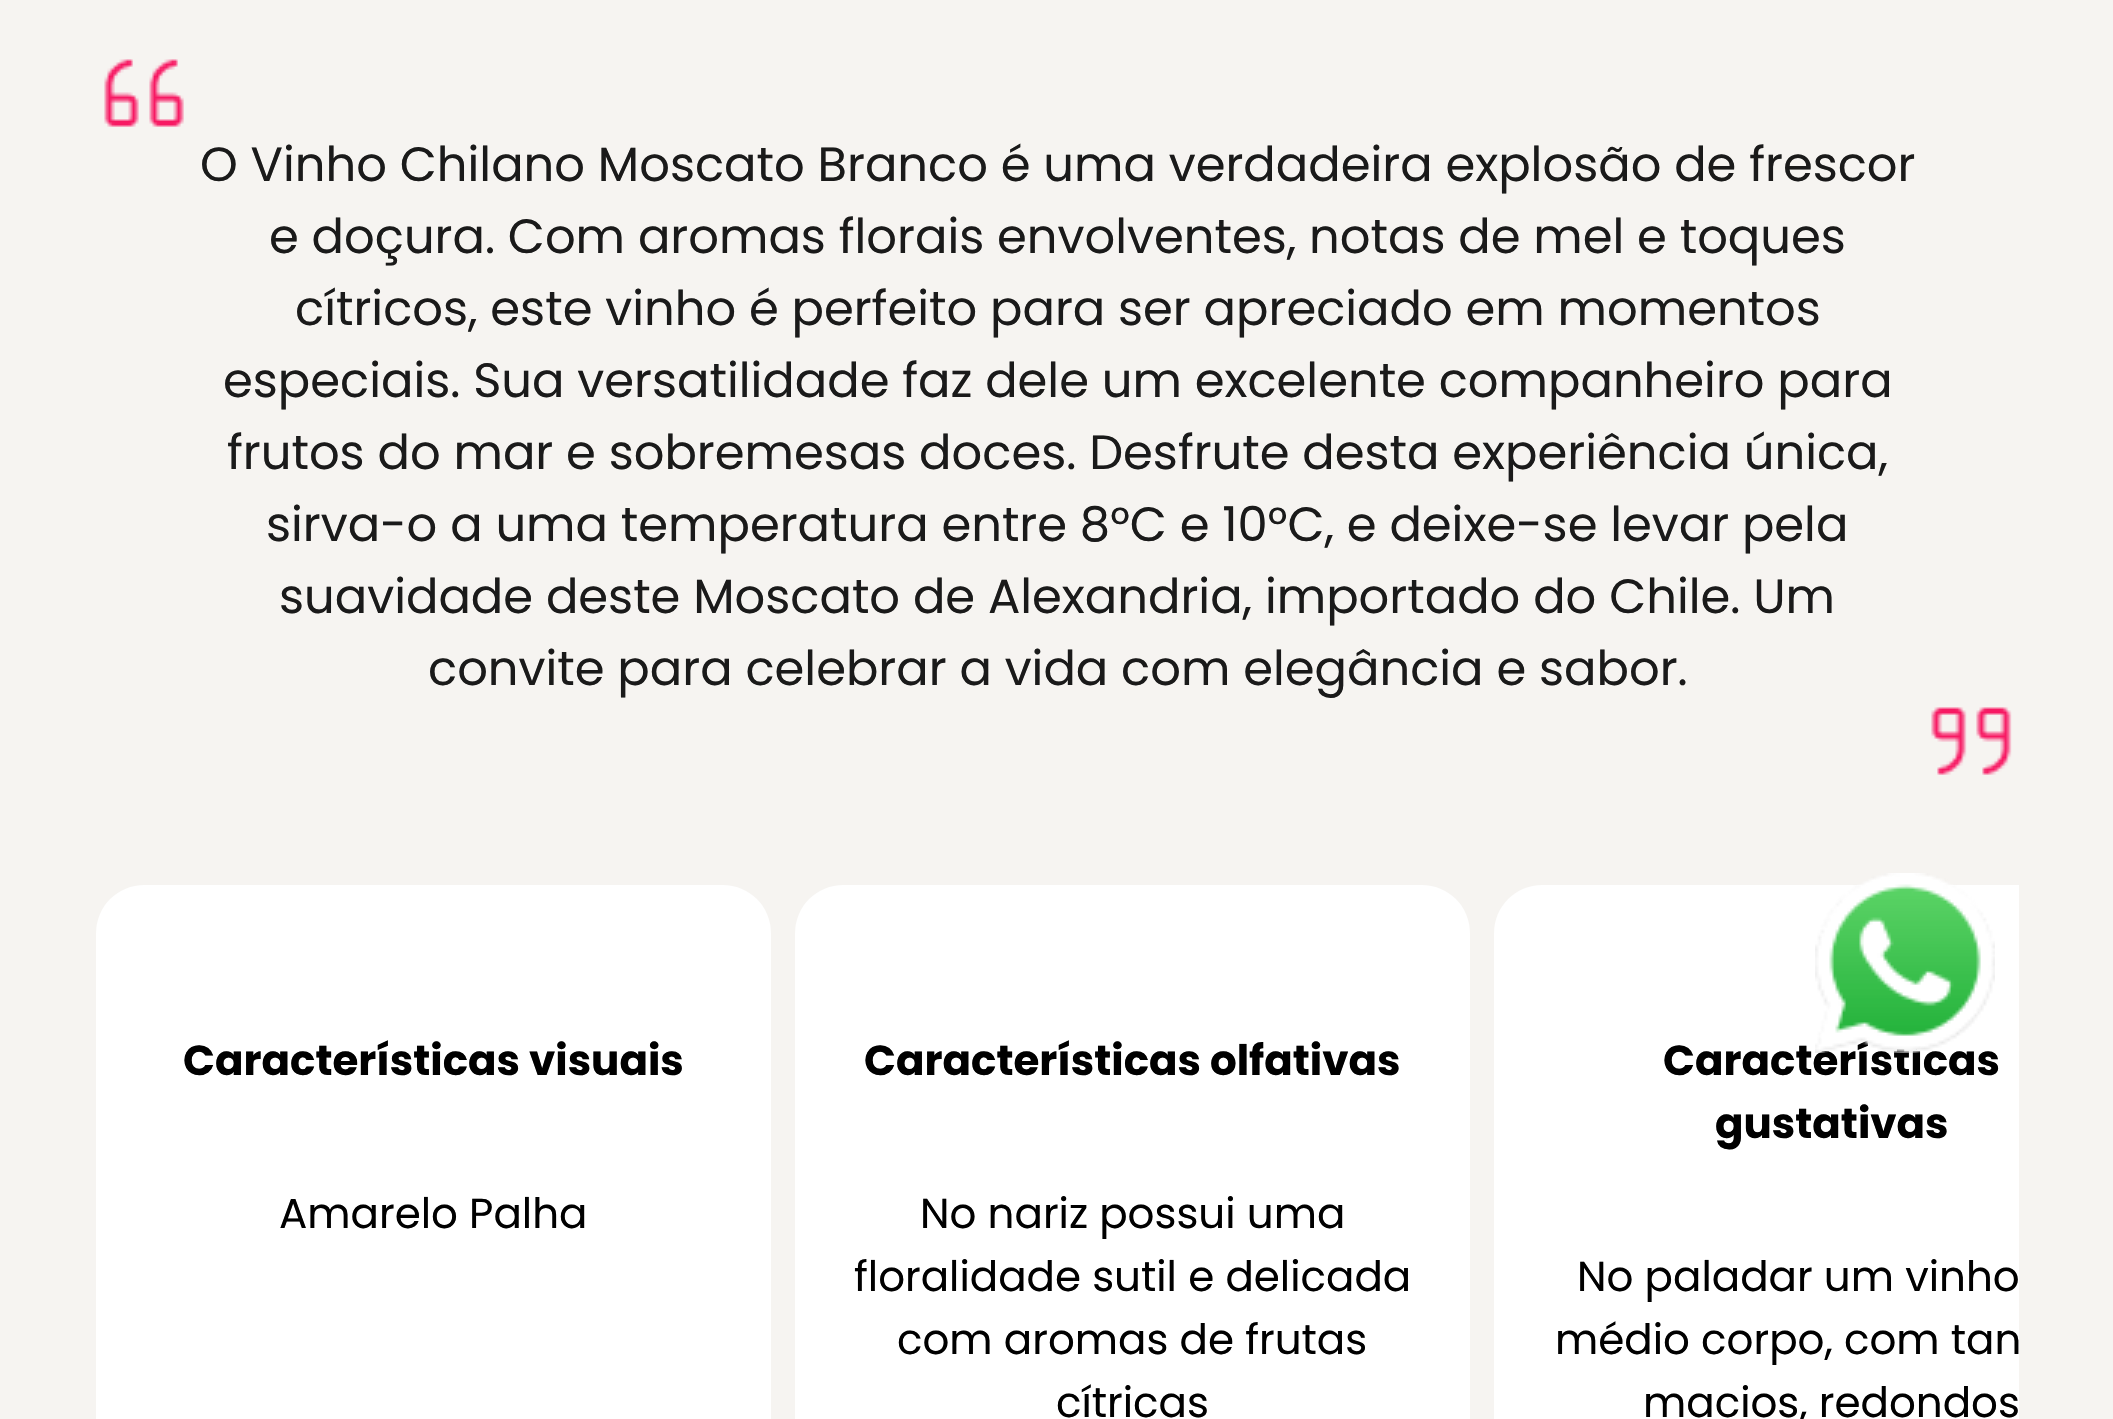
void draw(SkCanvas* c) {
SkPaint p;
p.setAntiAlias(true);
auto F=[&](const char* family, int weight, float size, bool italic = false){SkFontStyle style(weight, SkFontStyle::kNormal_Width,italic ? SkFontStyle::kItalic_Slant : SkFontStyle::kUpright_Slant);SkFont result(fontMgr->matchFamilyStyle(family, style), size);result.setSubpixel(true);return result;};
auto T=[&](const char* s, float x, float y, const SkFont& font){c->drawString(s, x, y, font, p);};
auto Q=[&](float x, float y, float w, float h, float radius){c->drawRoundRect(SkRect::MakeXYWH(x, y, w, h), radius, radius, p);};
auto I=[&](const char* path, float x, float y, float w, float h){auto image = SkImages::DeferredFromEncodedData(SkData::MakeFromFileName(path));c->drawImageRect(image, SkRect::MakeXYWH(x, y, w, h), SkSamplingOptions());};
auto P=[&](const char* data, bool evenOdd = false){SkPath result = *SkParsePath::FromSVGString(data);if (evenOdd) result.setFillType(SkPathFillType::kEvenOdd);return result;};
c->clear(0xfff6f4f1);
I("1.png",104,59,80,68);
auto f1 = F("Poppins",400,48);
p.setColor(0xff1a1a1a);
T("O Vinho Chilano Moscato Branco é uma verdadeira explosão de frescor",200,181,f1);
T("e doçura. Com aromas florais envolventes, notas de mel e toques",269,253,f1);
T("cítricos, este vinho é perfeito para ser apreciado em momentos",295,325,f1);
T("especiais. Sua versatilidade faz dele um excelente companheiro para",223,397,f1);
T("frutos do mar e sobremesas doces. Desfrute desta experiência única,",227,469,f1);
T("sirva-o a uma temperatura entre 8°C e 10°C, e deixe-se levar pela",266,541,f1);
T("suavidade deste Moscato de Alexandria, importado do Chile. Um",279,613,f1);
T("convite para celebrar a vida com elegância e sabor.",428,685,f1);
I("2.png",1931,707,81,68);
p.setColor(0xffffffff);
Q(96,885,675,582,48);
auto f2 = F("Poppins",700,42);
p.setColor(0xff000000);
T("Características visuais",183,1075,f2);
auto f3 = F("Poppins",400,42);
T("Amarelo Palha",279,1228,f3);
p.setColor(0xffffffff);
Q(795,885,675,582,48);
p.setColor(0xff000000);
T("Características olfativas",864,1075,f2);
T("No nariz possui uma",920,1228,f3);
T("floralidade sutil e delicada",854,1291,f3);
T("com aromas de frutas",897,1354,f3);
T("cítricas",1056,1417,f3);
p.setColor(0xffffffff);
c->drawPath(P("M1542 885h477v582h-477c-26.5 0-48-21.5-48-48v-486c0-26.5 21.5-48 48-48z"),p);
p.setColor(0xff000000);
T("Características",1663,1075,f2);
T("gustativas",1715,1138,f2);
T("No paladar um vinho",1577,1291,f3);
T("médio corpo, com tan",1555,1354,f3);
T("macios, redondos",1643,1417,f3);
I("3.png",1815,873,180,180);
}
